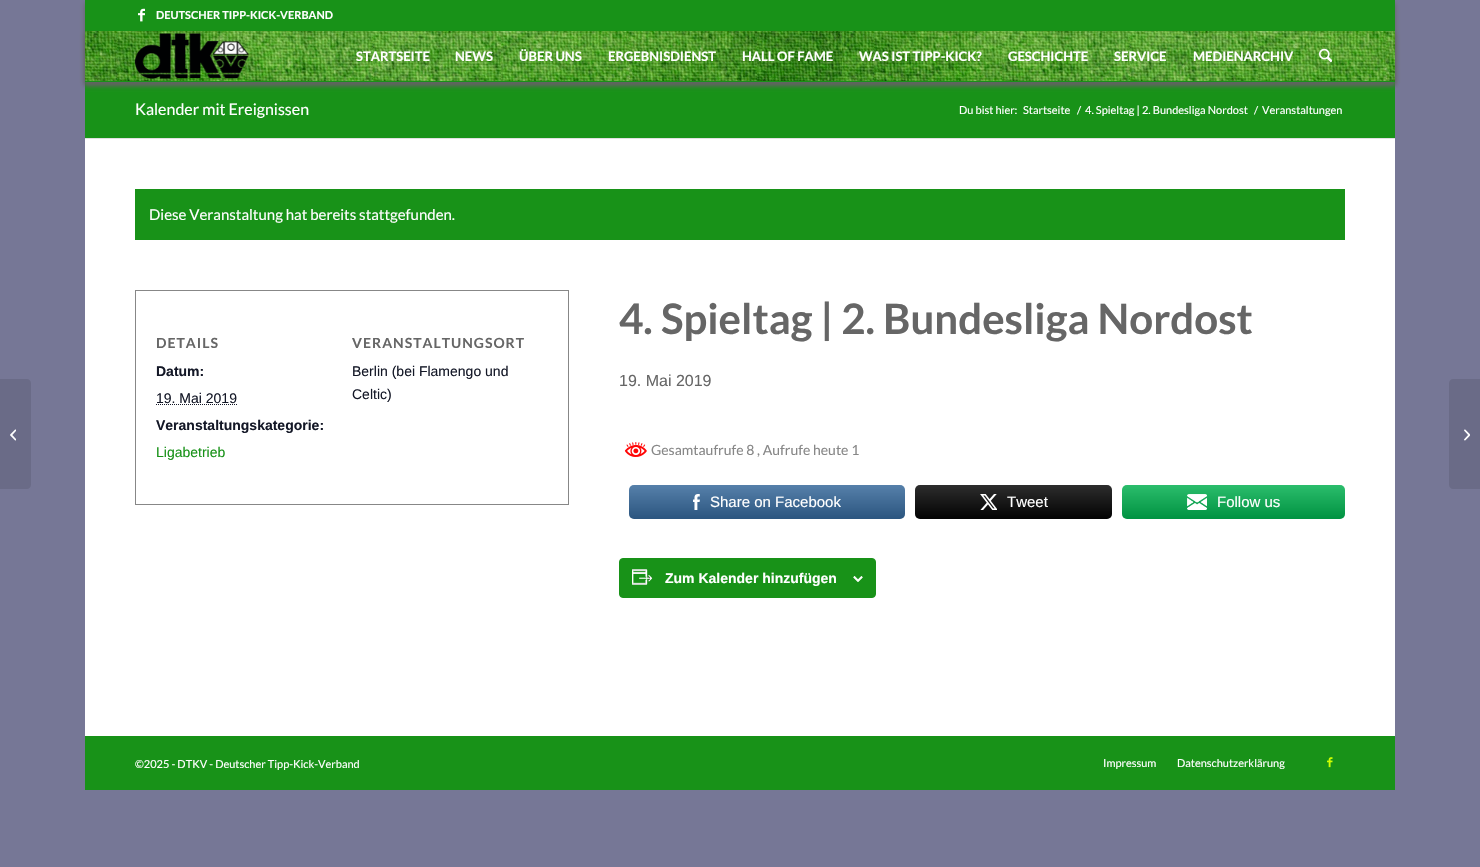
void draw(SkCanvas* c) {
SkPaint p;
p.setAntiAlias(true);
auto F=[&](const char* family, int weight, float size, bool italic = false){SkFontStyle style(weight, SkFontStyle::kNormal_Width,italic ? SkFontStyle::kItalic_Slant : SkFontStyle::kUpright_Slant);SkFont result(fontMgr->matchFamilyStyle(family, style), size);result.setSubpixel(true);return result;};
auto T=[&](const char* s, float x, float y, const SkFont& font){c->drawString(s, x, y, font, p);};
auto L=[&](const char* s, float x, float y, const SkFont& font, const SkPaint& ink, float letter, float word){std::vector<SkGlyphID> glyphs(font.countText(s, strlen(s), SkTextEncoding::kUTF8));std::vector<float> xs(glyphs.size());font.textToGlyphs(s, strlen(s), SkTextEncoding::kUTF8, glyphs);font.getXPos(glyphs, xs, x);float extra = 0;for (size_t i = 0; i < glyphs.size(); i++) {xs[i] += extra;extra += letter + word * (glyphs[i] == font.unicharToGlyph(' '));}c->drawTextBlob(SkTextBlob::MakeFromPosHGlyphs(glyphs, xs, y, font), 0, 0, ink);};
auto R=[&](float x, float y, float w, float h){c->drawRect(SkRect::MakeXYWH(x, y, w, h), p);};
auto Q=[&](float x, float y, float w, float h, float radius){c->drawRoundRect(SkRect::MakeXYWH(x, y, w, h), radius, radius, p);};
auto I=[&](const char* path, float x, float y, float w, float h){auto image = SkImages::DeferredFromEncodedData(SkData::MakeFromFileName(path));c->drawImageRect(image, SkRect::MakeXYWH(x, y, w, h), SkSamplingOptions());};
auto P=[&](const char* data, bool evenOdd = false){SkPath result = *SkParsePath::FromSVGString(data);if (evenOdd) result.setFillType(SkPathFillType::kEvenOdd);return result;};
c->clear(0xff767796);
p.setColor(0xff189218);
R(85,31,1310,759);
c->save();
c->clipPath(P("M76 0h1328v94h-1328zm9 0h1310v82h-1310z",true),true);
p.setColor(0xff626262);
p.setMaskFilter(SkMaskFilter::MakeBlur(kNormal_SkBlurStyle, 2.5));
c->drawRect(SkRect::MakeXYWH(85,3,1310,82),p);
p.setMaskFilter(nullptr);
c->restore();
I("2.png",85,31,1310,50);
c->save();
c->clipPath(P("M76 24h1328v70h-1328zm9 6h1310v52h-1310z",true),true);
p.setMaskFilter(SkMaskFilter::MakeBlur(kNormal_SkBlurStyle, 2.5));
c->drawRect(SkRect::MakeXYWH(85,33,1310,52),p);
p.setMaskFilter(nullptr);
c->restore();
p.setColor(0xff189218);
R(85,0,1310,31);
I("1.png",138,8,7,14);
auto f1 = F("Lato",700,11);
p.setColor(0xffffffff);
T("DEUTSCHER TIPP-KICK-VERBAND",156,19,f1);
I("3.png",135,33,114,46);
auto f2 = F("Lato",700,13);
T("STARTSEITE",356,61,f2);
T("NEWS",455,61,f2);
T("ÜBER UNS",519,61,f2);
T("ERGEBNISDIENST",608,61,f2);
T("HALL OF FAME",742,61,f2);
T("WAS IST TIPP-KICK?",859,61,f2);
T("GESCHICHTE",1008,61,f2);
T("SERVICE",1114,61,f2);
T("MEDIENARCHIV",1193,61,f2);
I("4.png",1319,48,13,15);
p.setColor(0xff6a6b87);
c->drawPath(P("M0 379h27c2 0 4 2 4 4v102c0 2-2 4-4 4h-27z"),p);
I("5.png",10,429,6,12);
auto f3 = F("Lato",400,16);
p.setColor(0xffffffff);
T("Kalender mit Ereignissen",135,115,f3);
auto f4 = F("Lato",400,11);
T("Du bist hier:",959,114,f4);
T("Startseite",1023,114,f4);
T("/",1077,114,f4);
T("4. Spieltag | 2. Bundesliga Nordost",1085,114,f4);
T("/",1254,114,f4);
T("Veranstaltungen",1262,114,f4);
R(85,139,1310,597);
p.setColor(0xffe1e1e1);
R(85,138,1310,1);
p.setColor(0xff189218);
R(135,189,1210,51);
auto f5 = F("Lato",400,15);
p.setColor(0xffffffff);
T("Diese Veranstaltung hat bereits stattgefunden.",149,220,f5);
p.setStroke(true);
p.setStrokeWidth(1);
p.setColor(0xff878787);
c->drawRect(SkRect::MakeXYWH(135.5,290.5,433,214),p);
auto f6 = F("Lato",700,14);
p.setStroke(false);
p.setColor(0xff666666);
L("DETAILS",156,348,f6,p,1,0);
auto f7 = F("Liberation Sans",700,14);
p.setColor(0xff141827);
T("Datum:",156,376,f7);
auto f8 = F("Liberation Sans",400,14);
T("19. Mai 2019",156,403,f8);
p.setStroke(true);
p.setPathEffect(SkDashPathEffect::Make({{1,1}}, 0));
c->drawPath(P("M156 404.5h81"),p);
p.setPathEffect(nullptr);
p.setStroke(false);
T("Veranstaltungskategorie:",156,430,f7);
p.setColor(0xff189218);
T("Ligabetrieb",156,457,f8);
p.setColor(0xff666666);
L("VERANSTALTUNGSORT",352,348,f6,p,1,0);
p.setColor(0xff141827);
T("Berlin (bei Flamengo und",352,376,f8);
T("Celtic)",352,399,f8);
auto f9 = F("Lato",700,42);
p.setColor(0xff666666);
T("4. Spieltag | 2. Bundesliga Nordost",619,334,f9);
auto f10 = F("Liberation Sans",400,16);
T("19. Mai 2019",619,386,f10);
I("6.png",624,442,23,15);
auto f11 = F("Lato",400,14);
p.setColor(0xff878787);
T("Gesamtaufrufe 8 , Aufrufe heute 1",651,455,f11);
p.setColor(0xff336699);
Q(629,485,276,34,5);
{
const SkColor colors[] = {0x2b000000,0x2bffffff};
const float stops[] = {0,1};
const SkPoint ends[] = {{767,519}, {767,485}};
p.setShader(SkGradientShader::MakeLinear(ends, colors, stops, 2, SkTileMode::kClamp));
p.setAlpha(255);
}
Q(629,485,276,34,5);
I("7.png",693,494,7,16);
auto f12 = F("Liberation Sans",400,15);
p.setShader(nullptr);
p.setColor(0xffffffff);
T("Share on Facebook",710,507,f12);
p.setColor(0xff020202);
Q(915,485,197,34,5);
{
const SkColor colors[] = {0x2b000000,0x2bffffff};
const float stops[] = {0,1};
const SkPoint ends[] = {{1014,519}, {1014,485}};
p.setShader(SkGradientShader::MakeLinear(ends, colors, stops, 2, SkTileMode::kClamp));
p.setAlpha(255);
}
Q(915,485,197,34,5);
I("8.png",980,494,17,16);
p.setShader(nullptr);
p.setColor(0xffffffff);
T("Tweet",1007,507,f12);
p.setColor(0xff00b04e);
Q(1122,485,223,34,5);
{
const SkColor colors[] = {0x2b000000,0x2bffffff};
const float stops[] = {0,1};
const SkPoint ends[] = {{1234,519}, {1234,485}};
p.setShader(SkGradientShader::MakeLinear(ends, colors, stops, 2, SkTileMode::kClamp));
p.setAlpha(255);
}
Q(1122,485,223,34,5);
I("9.png",1187,494,20,16);
p.setShader(nullptr);
p.setColor(0xffffffff);
T("Follow us",1217,507,f12);
p.setColor(0xff189218);
c->drawRoundRect(SkRect::MakeXYWH(619.5,558.5,256,39),3.5,3.5,p);
p.setStroke(true);
c->drawRoundRect(SkRect::MakeXYWH(619.5,558.5,256,39),3.5,3.5,p);
I("10.png",632,569,21,16);
p.setStroke(false);
p.setColor(0xffffffff);
T("Zum Kalender hinzufügen",665,583,f7);
I("11.png",853,576,10,6);
T("©2025 - DTKV - Deutscher Tipp-Kick-Verband",135,768,f4);
T("Impressum",1103,767,f4);
T("Datenschutzerklärung",1177,767,f4);
I("12.png",1327,757,6,11);
p.setColor(0xff6a6b87);
c->drawPath(P("M1453 379h27v110h-27c-2 0-4-2-4-4v-102c0-2 2-4 4-4z"),p);
I("13.png",1464,429,6,12);
}
